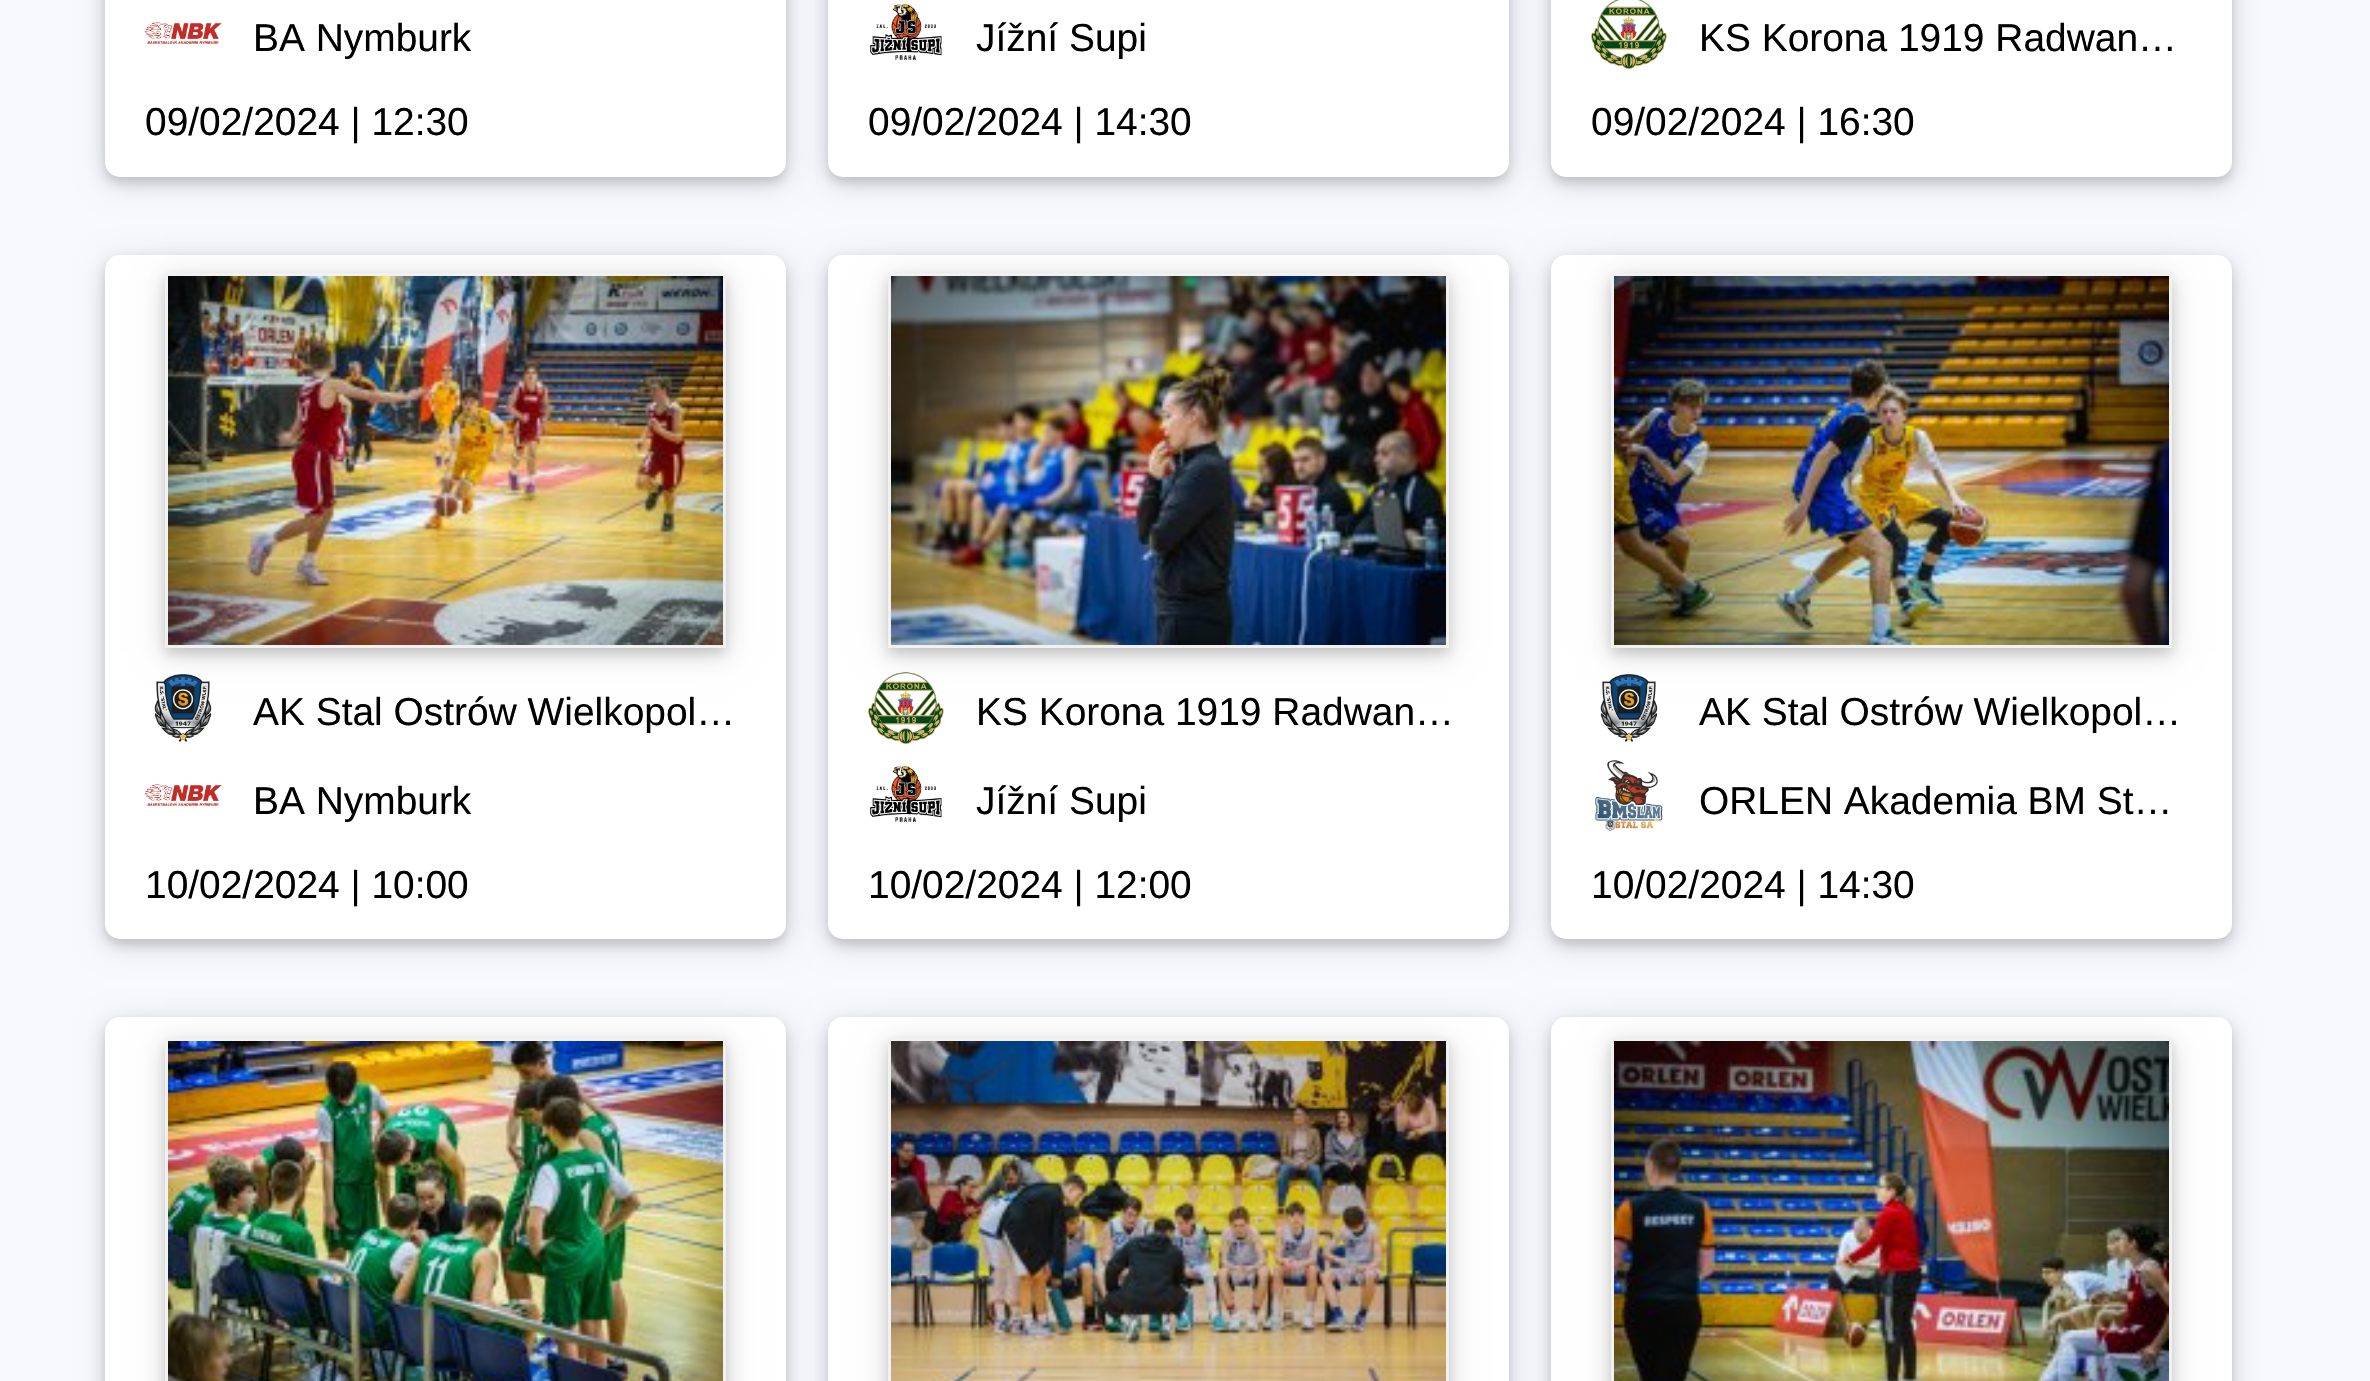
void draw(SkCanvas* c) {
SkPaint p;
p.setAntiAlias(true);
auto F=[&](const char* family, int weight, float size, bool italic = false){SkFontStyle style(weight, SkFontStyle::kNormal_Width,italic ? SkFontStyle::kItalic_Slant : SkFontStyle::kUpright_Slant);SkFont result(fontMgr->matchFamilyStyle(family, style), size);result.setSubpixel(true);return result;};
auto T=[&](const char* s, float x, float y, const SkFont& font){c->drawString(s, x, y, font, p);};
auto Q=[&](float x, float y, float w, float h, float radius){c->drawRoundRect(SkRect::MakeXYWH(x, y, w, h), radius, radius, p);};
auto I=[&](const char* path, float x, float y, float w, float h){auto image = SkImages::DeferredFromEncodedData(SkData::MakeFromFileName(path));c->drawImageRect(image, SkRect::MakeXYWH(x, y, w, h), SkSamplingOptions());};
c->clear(0xfff8f8ff);
p.setColor(0x1f000000);
p.setMaskFilter(SkMaskFilter::MakeBlur(kNormal_SkBlurStyle, 15));
c->drawRoundRect(SkRect::MakeXYWH(105,-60,681,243),15,15,p);
p.setMaskFilter(nullptr);
p.setColor(0x29000000);
p.setMaskFilter(SkMaskFilter::MakeBlur(kNormal_SkBlurStyle, 6));
c->drawRoundRect(SkRect::MakeXYWH(105,-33,681,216),15,15,p);
p.setMaskFilter(nullptr);
p.setColor(0xffffffff);
Q(105,-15,681,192,15);
I("1.png",144,22,78,22);
auto f1 = F("Liberation Sans",400,38.9);
p.setColor(0xff000000);
T("BA Nymburk",253,51,f1);
T("09/02/2024 | 12:30",145,135,f1);
p.setColor(0x1f000000);
p.setMaskFilter(SkMaskFilter::MakeBlur(kNormal_SkBlurStyle, 15));
c->drawRoundRect(SkRect::MakeXYWH(828,-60,681,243),15,15,p);
p.setMaskFilter(nullptr);
p.setColor(0x29000000);
p.setMaskFilter(SkMaskFilter::MakeBlur(kNormal_SkBlurStyle, 6));
c->drawRoundRect(SkRect::MakeXYWH(828,-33,681,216),15,15,p);
p.setMaskFilter(nullptr);
p.setColor(0xffffffff);
Q(828,-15,681,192,15);
I("2.png",870,4,72,56);
p.setColor(0xff000000);
T("Jížní Supi",976,51,f1);
T("09/02/2024 | 14:30",868,135,f1);
p.setColor(0x1f000000);
p.setMaskFilter(SkMaskFilter::MakeBlur(kNormal_SkBlurStyle, 15));
c->drawRoundRect(SkRect::MakeXYWH(1551,-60,681,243),15,15,p);
p.setMaskFilter(nullptr);
p.setColor(0x29000000);
p.setMaskFilter(SkMaskFilter::MakeBlur(kNormal_SkBlurStyle, 6));
c->drawRoundRect(SkRect::MakeXYWH(1551,-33,681,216),15,15,p);
p.setMaskFilter(nullptr);
p.setColor(0xffffffff);
Q(1551,-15,681,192,15);
I("3.png",1590,0,77,70);
p.setColor(0xff000000);
T("KS Korona 1919 Radwan…",1699,51,f1);
T("09/02/2024 | 16:30",1591,135,f1);
p.setColor(0x1f000000);
p.setMaskFilter(SkMaskFilter::MakeBlur(kNormal_SkBlurStyle, 15));
c->drawRoundRect(SkRect::MakeXYWH(105,261,681,684),15,15,p);
p.setMaskFilter(nullptr);
p.setColor(0x29000000);
p.setMaskFilter(SkMaskFilter::MakeBlur(kNormal_SkBlurStyle, 6));
c->drawRoundRect(SkRect::MakeXYWH(105,261,681,684),15,15,p);
p.setMaskFilter(nullptr);
p.setColor(0xffffffff);
Q(105,255,681,684,15);
p.setColor(0x1f000000);
p.setMaskFilter(SkMaskFilter::MakeBlur(kNormal_SkBlurStyle, 15));
c->drawRect(SkRect::MakeXYWH(165,279,561,375),p);
p.setMaskFilter(nullptr);
p.setColor(0x29000000);
p.setMaskFilter(SkMaskFilter::MakeBlur(kNormal_SkBlurStyle, 6));
c->drawRect(SkRect::MakeXYWH(165,279,561,375),p);
p.setMaskFilter(nullptr);
p.setStroke(true);
p.setStrokeWidth(3);
p.setColor(0xfff1f1f1);
c->drawRect(SkRect::MakeXYWH(166.5,274.5,558,372),p);
I("4.png",168,276,555,369);
I("5.png",154,674,58,68);
p.setStroke(false);
p.setColor(0xff000000);
T("AK Stal Ostrów Wielkopol…",253,725,f1);
I("1.png",144,784,78,22);
T("BA Nymburk",253,814,f1);
T("10/02/2024 | 10:00",145,898,f1);
p.setColor(0x1f000000);
p.setMaskFilter(SkMaskFilter::MakeBlur(kNormal_SkBlurStyle, 15));
c->drawRoundRect(SkRect::MakeXYWH(828,261,681,684),15,15,p);
p.setMaskFilter(nullptr);
p.setColor(0x29000000);
p.setMaskFilter(SkMaskFilter::MakeBlur(kNormal_SkBlurStyle, 6));
c->drawRoundRect(SkRect::MakeXYWH(828,261,681,684),15,15,p);
p.setMaskFilter(nullptr);
p.setColor(0xffffffff);
Q(828,255,681,684,15);
p.setColor(0x1f000000);
p.setMaskFilter(SkMaskFilter::MakeBlur(kNormal_SkBlurStyle, 15));
c->drawRect(SkRect::MakeXYWH(888,279,561,375),p);
p.setMaskFilter(nullptr);
p.setColor(0x29000000);
p.setMaskFilter(SkMaskFilter::MakeBlur(kNormal_SkBlurStyle, 6));
c->drawRect(SkRect::MakeXYWH(888,279,561,375),p);
p.setMaskFilter(nullptr);
p.setStroke(true);
p.setColor(0xfff1f1f1);
c->drawRect(SkRect::MakeXYWH(889.5,274.5,558,372),p);
I("6.png",891,276,555,369);
I("7.png",867,672,77,73);
p.setStroke(false);
p.setColor(0xff000000);
T("KS Korona 1919 Radwan…",976,725,f1);
I("2.png",870,766,72,56);
T("Jížní Supi",976,814,f1);
T("10/02/2024 | 12:00",868,898,f1);
p.setColor(0x1f000000);
p.setMaskFilter(SkMaskFilter::MakeBlur(kNormal_SkBlurStyle, 15));
c->drawRoundRect(SkRect::MakeXYWH(1551,261,681,684),15,15,p);
p.setMaskFilter(nullptr);
p.setColor(0x29000000);
p.setMaskFilter(SkMaskFilter::MakeBlur(kNormal_SkBlurStyle, 6));
c->drawRoundRect(SkRect::MakeXYWH(1551,261,681,684),15,15,p);
p.setMaskFilter(nullptr);
p.setColor(0xffffffff);
Q(1551,255,681,684,15);
p.setColor(0x1f000000);
p.setMaskFilter(SkMaskFilter::MakeBlur(kNormal_SkBlurStyle, 15));
c->drawRect(SkRect::MakeXYWH(1611,279,561,375),p);
p.setMaskFilter(nullptr);
p.setColor(0x29000000);
p.setMaskFilter(SkMaskFilter::MakeBlur(kNormal_SkBlurStyle, 6));
c->drawRect(SkRect::MakeXYWH(1611,279,561,375),p);
p.setMaskFilter(nullptr);
p.setStroke(true);
p.setColor(0xfff1f1f1);
c->drawRect(SkRect::MakeXYWH(1612.5,274.5,558,372),p);
I("8.png",1614,276,555,369);
I("9.png",1600,674,58,68);
p.setStroke(false);
p.setColor(0xff000000);
T("AK Stal Ostrów Wielkopol…",1699,725,f1);
I("10.png",1595,760,68,71);
T("ORLEN Akademia BM St…",1699,814,f1);
T("10/02/2024 | 14:30",1591,898,f1);
p.setColor(0x1f000000);
p.setMaskFilter(SkMaskFilter::MakeBlur(kNormal_SkBlurStyle, 15));
c->drawRoundRect(SkRect::MakeXYWH(105,1023,681,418),15,15,p);
p.setMaskFilter(nullptr);
p.setColor(0x29000000);
p.setMaskFilter(SkMaskFilter::MakeBlur(kNormal_SkBlurStyle, 6));
c->drawRoundRect(SkRect::MakeXYWH(105,1023,681,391),15,15,p);
p.setMaskFilter(nullptr);
p.setColor(0xffffffff);
Q(105,1017,681,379,15);
p.setColor(0x1f000000);
p.setMaskFilter(SkMaskFilter::MakeBlur(kNormal_SkBlurStyle, 15));
c->drawRect(SkRect::MakeXYWH(165,1044,561,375),p);
p.setMaskFilter(nullptr);
p.setColor(0x29000000);
p.setMaskFilter(SkMaskFilter::MakeBlur(kNormal_SkBlurStyle, 6));
c->drawRect(SkRect::MakeXYWH(165,1044,561,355),p);
p.setMaskFilter(nullptr);
p.setStroke(true);
p.setColor(0xfff1f1f1);
c->drawRect(SkRect::MakeXYWH(166.5,1039.5,558,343),p);
I("11.png",168,1041,555,340);
p.setStroke(false);
p.setColor(0x1f000000);
p.setMaskFilter(SkMaskFilter::MakeBlur(kNormal_SkBlurStyle, 15));
c->drawRoundRect(SkRect::MakeXYWH(828,1023,681,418),15,15,p);
p.setMaskFilter(nullptr);
p.setColor(0x29000000);
p.setMaskFilter(SkMaskFilter::MakeBlur(kNormal_SkBlurStyle, 6));
c->drawRoundRect(SkRect::MakeXYWH(828,1023,681,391),15,15,p);
p.setMaskFilter(nullptr);
p.setColor(0xffffffff);
Q(828,1017,681,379,15);
p.setColor(0x1f000000);
p.setMaskFilter(SkMaskFilter::MakeBlur(kNormal_SkBlurStyle, 15));
c->drawRect(SkRect::MakeXYWH(888,1044,561,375),p);
p.setMaskFilter(nullptr);
p.setColor(0x29000000);
p.setMaskFilter(SkMaskFilter::MakeBlur(kNormal_SkBlurStyle, 6));
c->drawRect(SkRect::MakeXYWH(888,1044,561,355),p);
p.setMaskFilter(nullptr);
p.setStroke(true);
p.setColor(0xfff1f1f1);
c->drawRect(SkRect::MakeXYWH(889.5,1039.5,558,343),p);
I("12.png",891,1041,555,340);
p.setStroke(false);
p.setColor(0x1f000000);
p.setMaskFilter(SkMaskFilter::MakeBlur(kNormal_SkBlurStyle, 15));
c->drawRoundRect(SkRect::MakeXYWH(1551,1023,681,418),15,15,p);
p.setMaskFilter(nullptr);
p.setColor(0x29000000);
p.setMaskFilter(SkMaskFilter::MakeBlur(kNormal_SkBlurStyle, 6));
c->drawRoundRect(SkRect::MakeXYWH(1551,1023,681,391),15,15,p);
p.setMaskFilter(nullptr);
p.setColor(0xffffffff);
Q(1551,1017,681,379,15);
p.setColor(0x1f000000);
p.setMaskFilter(SkMaskFilter::MakeBlur(kNormal_SkBlurStyle, 15));
c->drawRect(SkRect::MakeXYWH(1611,1044,561,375),p);
p.setMaskFilter(nullptr);
p.setColor(0x29000000);
p.setMaskFilter(SkMaskFilter::MakeBlur(kNormal_SkBlurStyle, 6));
c->drawRect(SkRect::MakeXYWH(1611,1044,561,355),p);
p.setMaskFilter(nullptr);
p.setStroke(true);
p.setColor(0xfff1f1f1);
c->drawRect(SkRect::MakeXYWH(1612.5,1039.5,558,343),p);
I("13.png",1614,1041,555,340);
}
